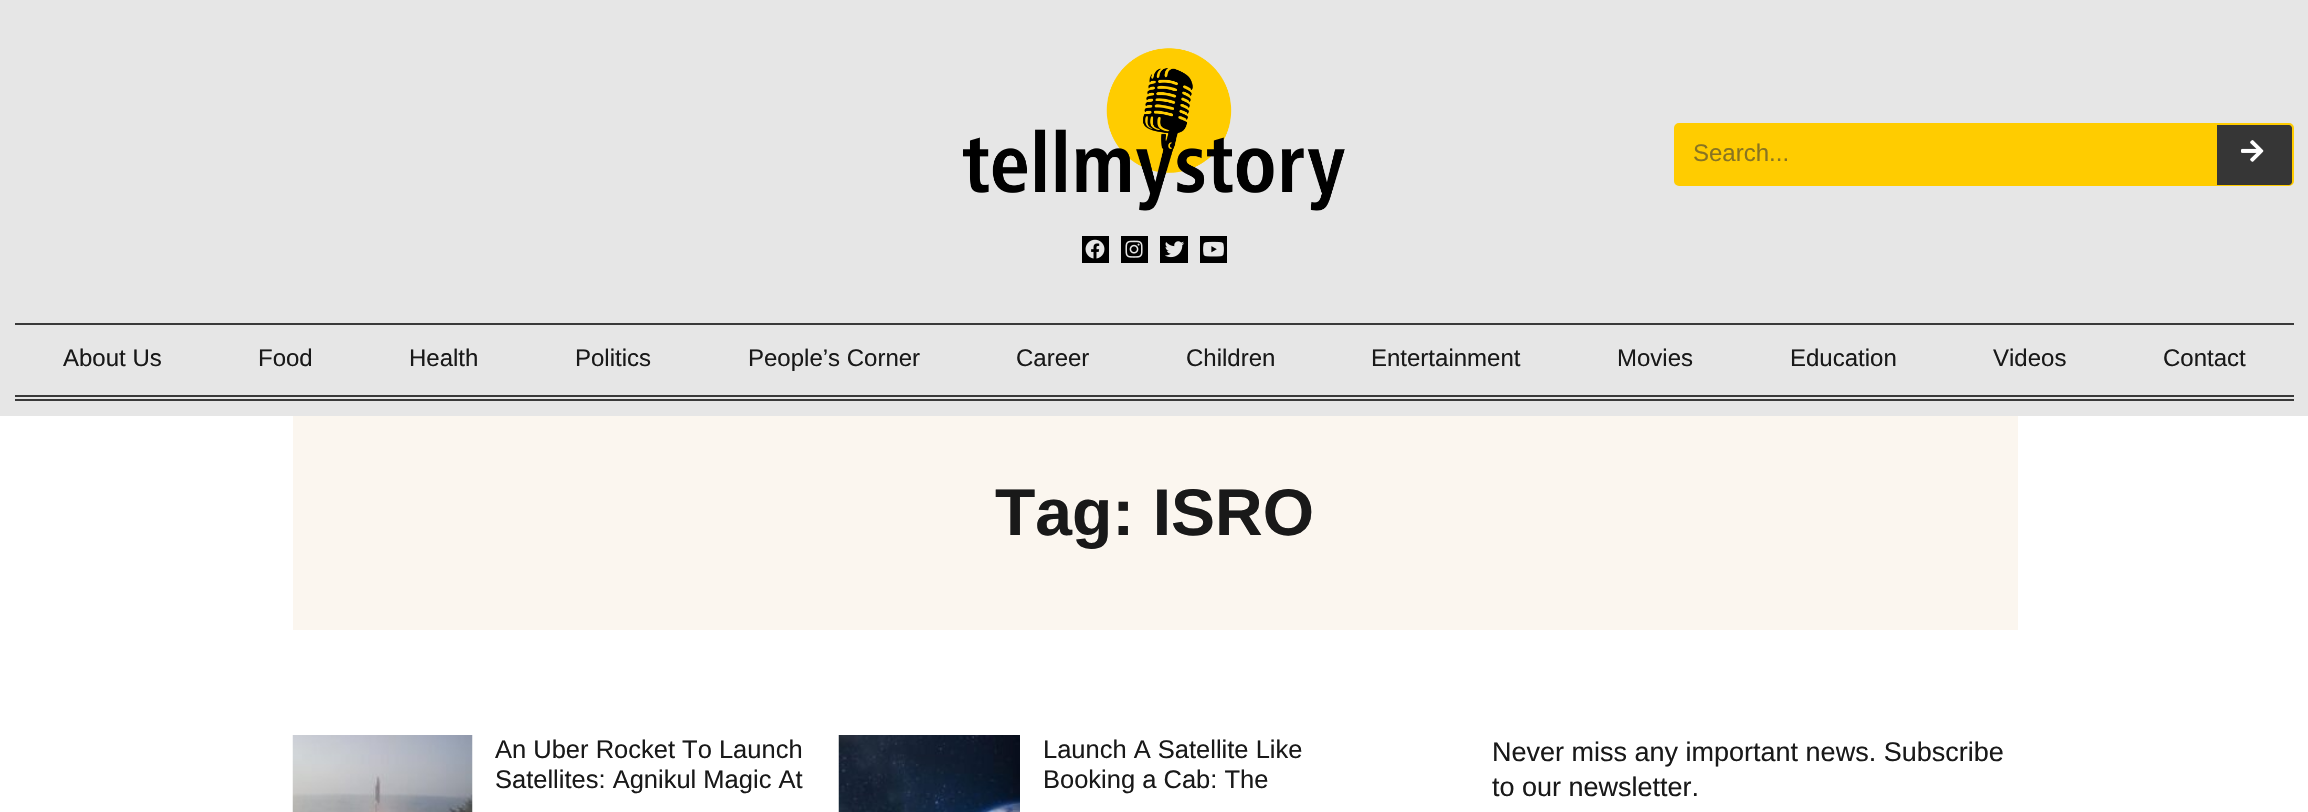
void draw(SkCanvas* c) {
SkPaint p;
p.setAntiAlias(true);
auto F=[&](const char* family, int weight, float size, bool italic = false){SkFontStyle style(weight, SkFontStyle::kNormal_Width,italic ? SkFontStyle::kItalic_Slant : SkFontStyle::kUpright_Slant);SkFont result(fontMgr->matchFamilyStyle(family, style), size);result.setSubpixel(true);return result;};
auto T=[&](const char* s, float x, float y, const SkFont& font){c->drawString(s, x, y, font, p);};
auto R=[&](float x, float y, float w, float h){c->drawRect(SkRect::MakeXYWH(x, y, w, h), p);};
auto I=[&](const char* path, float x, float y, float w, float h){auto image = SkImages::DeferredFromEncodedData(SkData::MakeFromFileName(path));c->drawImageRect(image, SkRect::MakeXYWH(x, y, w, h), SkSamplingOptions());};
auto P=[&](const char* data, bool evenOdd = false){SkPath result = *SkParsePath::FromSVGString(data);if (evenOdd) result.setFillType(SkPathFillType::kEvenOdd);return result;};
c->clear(0xffffffff);
p.setColor(0xffe6e6e6);
R(0,0,2308,416);
I("1.png",963,48,382,163);
p.setColor(0xff000000);
R(1082,236,27,27);
I("2.png",1085,239,20,20);
R(1121,236,27,27);
I("3.png",1125,240,18,18);
R(1160,236,28,27);
I("4.png",1165,241,20,17);
R(1200,236,27,27);
I("5.png",1203,241,21,16);
p.setColor(0xffffcc00);
c->drawRoundRect(SkRect::MakeXYWH(1675,124,618,61),4,4,p);
p.setStroke(true);
p.setStrokeWidth(2);
c->drawRoundRect(SkRect::MakeXYWH(1675,124,618,61),4,4,p);
auto f1 = F("Liberation Sans",400,24);
p.setStroke(false);
p.setColor(0xff887422);
T("Search...",1693,161,f1);
p.setColor(0xff363636);
c->drawPath(P("M2217 125h72c1.5 0 3 1.5 3 3v54c0 1.5-1.5 3-3 3h-72z"),p);
I("6.png",2241,140,23,22);
p.setColor(0xff393939);
R(15,323,2279,2);
R(15,395,2279,2);
R(15,399,2279,2);
p.setColor(0xff191919);
T("About Us",63,366,f1);
T("Food",258,366,f1);
T("Health",409,366,f1);
T("Politics",575,366,f1);
T("People’s Corner",748,366,f1);
T("Career",1016,366,f1);
T("Children",1186,366,f1);
T("Entertainment",1371,366,f1);
T("Movies",1617,366,f1);
T("Education",1790,366,f1);
T("Videos",1993,366,f1);
T("Contact",2163,366,f1);
p.setColor(0xfffbf6ef);
R(293,416,1725,214);
auto f2 = F("Liberation Sans",700,66);
p.setColor(0xff191919);
T("Tag: ISRO",995,535,f2);
I("7.png",292,735,181,77);
auto f3 = F("Liberation Sans",400,25.5);
T("An Uber Rocket To Launch",495,758,f3);
T("Satellites: Agnikul Magic At",495,788,f3);
I("8.png",838,735,182,77);
T("Launch A Satellite Like",1043,758,f3);
T("Booking a Cab: The",1043,788,f3);
auto f4 = F("Liberation Sans",400,27);
T("Never miss any important news. Subscribe",1492,761,f4);
T("to our newsletter.",1492,796,f4);
}
